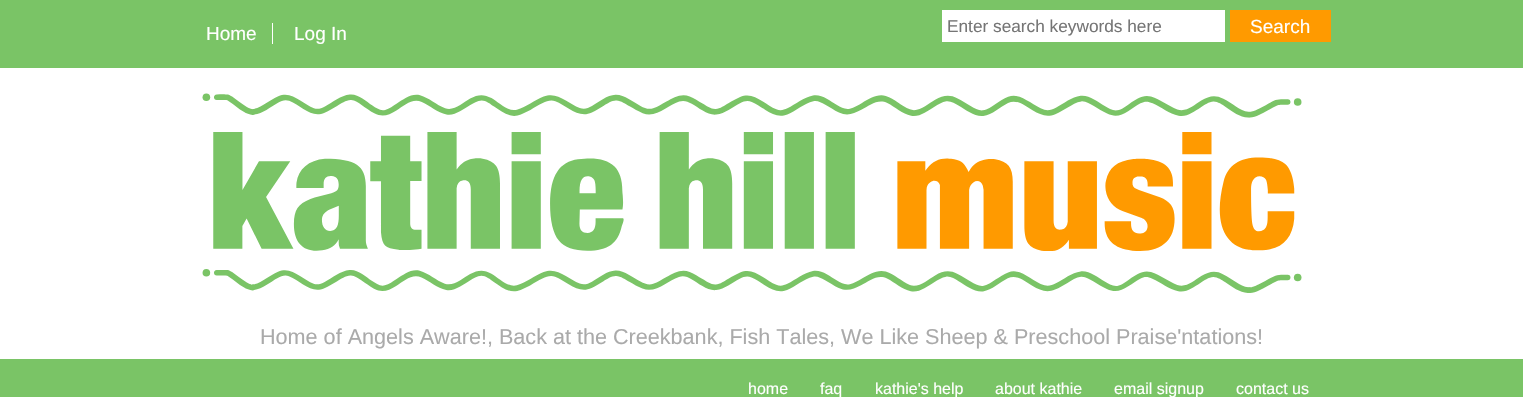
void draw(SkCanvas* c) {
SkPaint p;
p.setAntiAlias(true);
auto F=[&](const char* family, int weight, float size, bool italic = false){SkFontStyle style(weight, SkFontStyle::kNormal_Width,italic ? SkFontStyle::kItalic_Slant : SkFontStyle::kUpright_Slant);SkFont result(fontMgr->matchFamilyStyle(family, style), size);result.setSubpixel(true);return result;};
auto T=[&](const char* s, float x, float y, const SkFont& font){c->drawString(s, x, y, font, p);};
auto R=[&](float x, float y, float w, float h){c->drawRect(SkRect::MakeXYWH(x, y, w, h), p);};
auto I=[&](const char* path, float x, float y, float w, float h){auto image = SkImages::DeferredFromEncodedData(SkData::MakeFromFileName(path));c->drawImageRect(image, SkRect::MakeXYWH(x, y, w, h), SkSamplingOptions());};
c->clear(0xffffffff);
p.setColor(0xff7ac466);
R(0,0,1523,68);
auto f1 = F("Liberation Sans",400,19);
p.setColor(0xffffffff);
T("Home",206,40,f1);
R(272,23,1,21);
T("Log In",294,40,f1);
R(942,10,283,32);
auto f2 = F("Liberation Sans",400,17.25);
p.setColor(0xff757575);
T("Enter search keywords here",947,32,f2);
p.setColor(0xffff9a00);
R(1230,10,101,32);
p.setColor(0xffffffff);
T("Search",1250,33,f1);
I("1.png",202,93,1100,200);
auto f3 = F("Liberation Sans",400,21.6);
p.setColor(0xffaaaaaa);
T("Home of Angels Aware!, Back at the Creekbank, Fish Tales, We Like Sheep & Preschool Praise'ntations!",260,344,f3);
p.setColor(0xff7ac466);
R(0,359,1523,38);
auto f4 = F("Liberation Sans",400,16);
p.setColor(0xffffffff);
T("home",748,394,f4);
T("faq",820,394,f4);
T("kathie's help",875,394,f4);
T("about kathie",995,394,f4);
T("email signup",1114,394,f4);
T("contact us",1236,394,f4);
}
